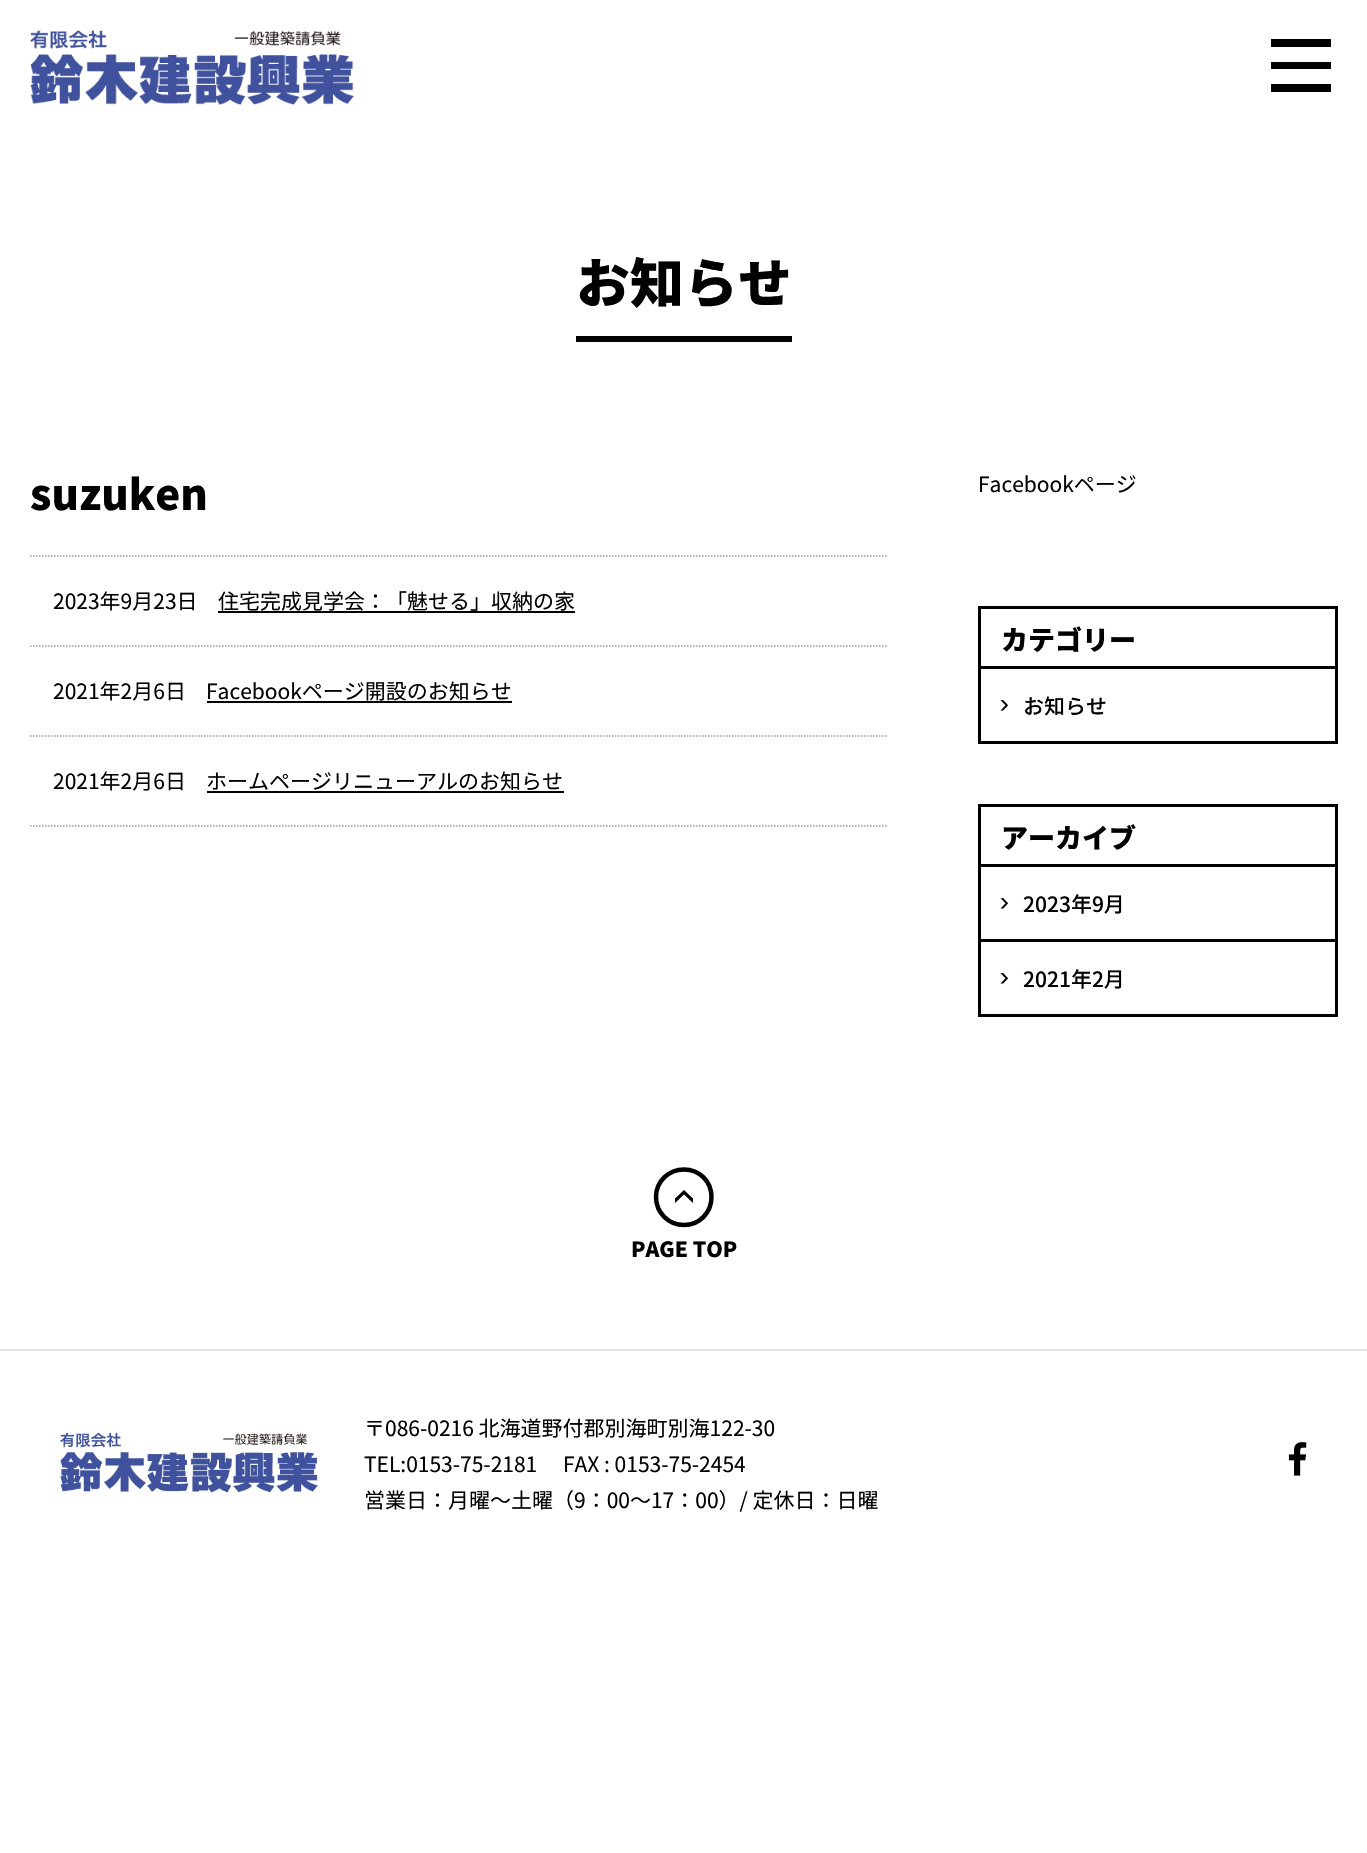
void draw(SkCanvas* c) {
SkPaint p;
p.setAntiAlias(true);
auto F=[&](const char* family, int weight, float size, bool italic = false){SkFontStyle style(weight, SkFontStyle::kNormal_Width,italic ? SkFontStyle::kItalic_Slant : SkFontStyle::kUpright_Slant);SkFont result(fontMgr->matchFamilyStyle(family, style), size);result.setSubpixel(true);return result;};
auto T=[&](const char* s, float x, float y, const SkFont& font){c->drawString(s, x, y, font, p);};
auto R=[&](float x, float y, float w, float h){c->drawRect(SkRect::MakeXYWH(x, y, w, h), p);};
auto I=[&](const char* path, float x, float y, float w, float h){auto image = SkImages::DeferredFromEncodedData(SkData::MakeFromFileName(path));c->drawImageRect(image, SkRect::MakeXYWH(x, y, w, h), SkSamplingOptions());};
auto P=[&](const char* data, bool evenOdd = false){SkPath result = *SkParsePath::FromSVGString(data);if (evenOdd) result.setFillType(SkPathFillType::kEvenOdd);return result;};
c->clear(0xffffffff);
I("1.png",30,30,324,75);
p.setColor(0xff000000);
R(1271,39,60,8);
R(1271,84,60,8);
R(1271,62,60,7);
R(576,336,216,6);
auto f1 = F("Noto Sans JP",900,54);
T("お知らせ",576,303,f1);
auto f2 = F("Noto Sans JP",900,42);
T("suzuken",30,510,f2);
p.setStroke(true);
p.setStrokeWidth(1.5);
p.setColor(0xff999999);
p.setPathEffect(SkDashPathEffect::Make({{1.5f,1.5f}}, 0));
c->drawPath(P("M30 556h858"),p);
p.setPathEffect(nullptr);
p.setPathEffect(SkDashPathEffect::Make({{1.5f,1.5f}}, 0));
c->drawPath(P("M30 646h858"),p);
p.setPathEffect(nullptr);
auto f3 = F("Noto Sans JP",400,21);
p.setStroke(false);
p.setColor(0xff000000);
T("2023年9月23日",53,609,f3);
T("住宅完成見学会：「魅せる」収納の家",218,609,f3);
R(218,611,357,2);
p.setStroke(true);
p.setColor(0xff999999);
p.setPathEffect(SkDashPathEffect::Make({{1.5f,1.5f}}, 0));
c->drawPath(P("M30 736h858"),p);
p.setPathEffect(nullptr);
p.setStroke(false);
p.setColor(0xff000000);
T("2021年2月6日",53,699,f3);
T("Facebookページ開設のお知らせ",206,699,f3);
R(207,701,305,2);
p.setStroke(true);
p.setColor(0xff999999);
p.setPathEffect(SkDashPathEffect::Make({{1.5f,1.5f}}, 0));
c->drawPath(P("M30 826h858"),p);
p.setPathEffect(nullptr);
p.setStroke(false);
p.setColor(0xff000000);
T("2021年2月6日",53,789,f3);
T("ホームページリニューアルのお知らせ",206,789,f3);
R(207,791,357,2);
T("Facebookページ",978,492,f3);
R(978,606,360,3);
R(1335,606,3,60);
R(978,606,3,60);
auto f4 = F("Noto Sans JP",900,27);
T("カテゴリー",1001,650,f4);
p.setStroke(true);
p.setStrokeWidth(3);
c->drawRect(SkRect::MakeXYWH(979.5,667.5,357,75),p);
I("2.png",1000,700,8,11);
auto f5 = F("Noto Sans JP",500,21);
p.setStroke(false);
T("お知らせ",1023,714,f5);
R(978,804,360,3);
R(1335,804,3,60);
R(978,804,3,60);
T("アーカイブ",1001,848,f4);
p.setStroke(true);
c->drawRect(SkRect::MakeXYWH(979.5,865.5,357,150),p);
I("2.png",1000,898,8,11);
p.setStroke(false);
T("2023年9月",1023,912,f5);
R(981,939,354,3);
I("2.png",1000,973,8,11);
T("2021年2月",1023,987,f5);
p.setStroke(true);
p.setStrokeWidth(4.5);
c->drawPath(P("M656 1197c0-15.5 12.5-27.5 28-27.5c15.5 0 27.5 12 27.5 27.5c0 15.5-12 28-27.5 28c-15.5 0-28-12.5-28-28z"),p);
p.setStroke(false);
c->drawPath(P("M693 1203l-9-8.5l-9 8.5v-4.5l9-8.5l9 8.5z"),p);
auto f6 = F("Noto Sans JP",900,21);
T("PAGE TOP",631,1257,f6);
p.setColor(0xffe5e5e5);
R(0,1349,1367,2);
I("3.png",60,1432,258,61);
p.setColor(0xff000000);
T("〒086-0216 北海道野付郡別海町別海122-30",364,1436,f3);
T("TEL:0153-75-2181",364,1472,f3);
T("FAX : 0153-75-2454",563,1472,f3);
T("営業日：月曜〜土曜（9：00〜17：00）/ 定休日：日曜",364,1508,f3);
I("4.png",1288,1442,19,34);
}
